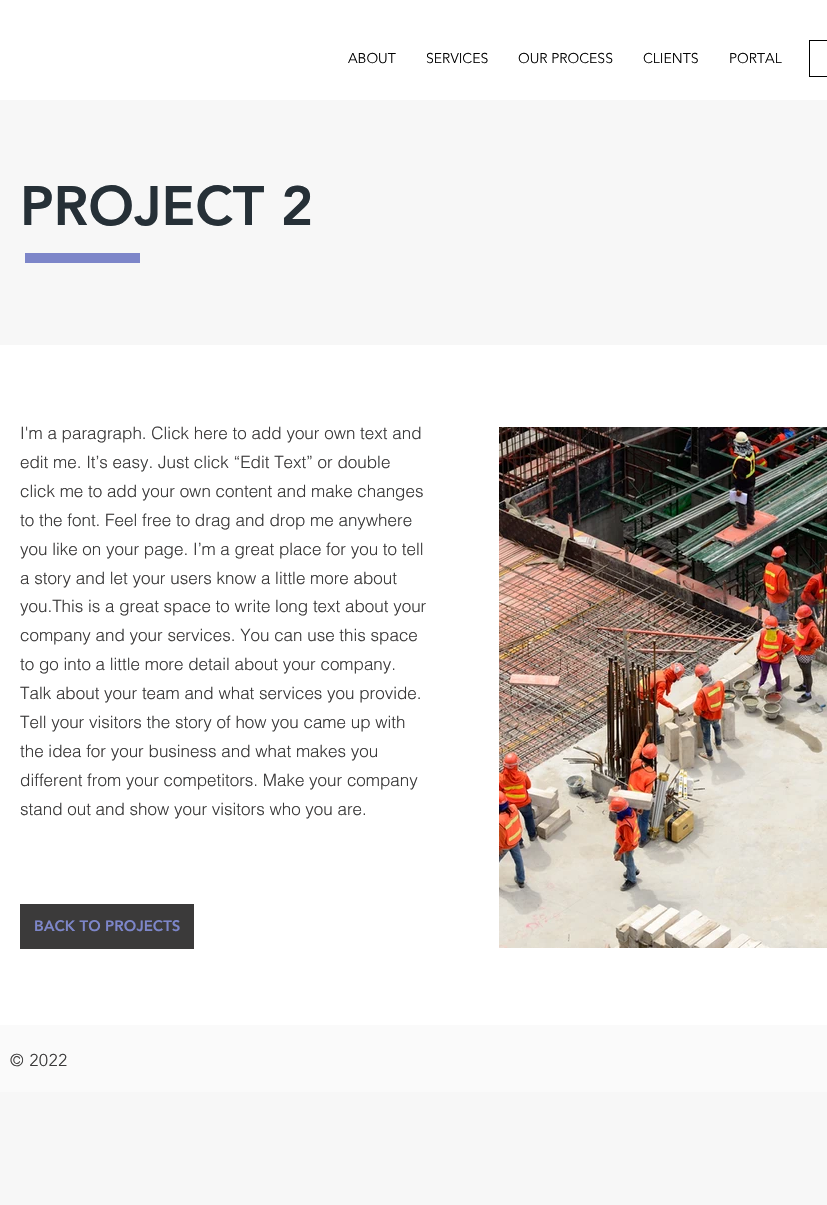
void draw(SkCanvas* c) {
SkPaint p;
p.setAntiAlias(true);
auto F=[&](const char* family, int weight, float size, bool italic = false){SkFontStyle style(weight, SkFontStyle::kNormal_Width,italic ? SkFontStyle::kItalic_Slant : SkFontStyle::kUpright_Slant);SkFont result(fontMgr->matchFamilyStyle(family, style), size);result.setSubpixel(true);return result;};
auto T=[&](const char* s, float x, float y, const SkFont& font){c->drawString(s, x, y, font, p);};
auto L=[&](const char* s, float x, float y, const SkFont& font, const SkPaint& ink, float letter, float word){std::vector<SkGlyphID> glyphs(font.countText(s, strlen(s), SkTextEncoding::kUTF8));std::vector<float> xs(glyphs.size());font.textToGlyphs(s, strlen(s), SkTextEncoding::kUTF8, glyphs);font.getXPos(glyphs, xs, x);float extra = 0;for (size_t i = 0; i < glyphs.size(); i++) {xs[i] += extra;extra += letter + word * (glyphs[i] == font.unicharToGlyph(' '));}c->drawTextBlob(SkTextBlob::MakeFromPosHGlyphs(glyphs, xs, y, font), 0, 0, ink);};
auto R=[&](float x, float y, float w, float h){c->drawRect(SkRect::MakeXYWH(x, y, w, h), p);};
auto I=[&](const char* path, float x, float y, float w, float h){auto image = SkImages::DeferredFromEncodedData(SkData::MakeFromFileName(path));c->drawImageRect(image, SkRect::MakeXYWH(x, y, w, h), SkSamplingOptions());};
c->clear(0xfff7f7f7);
p.setColor(0xffffffff);
R(0,0,827,100);
auto f1 = F("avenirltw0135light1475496",300,14);
p.setColor(0xff000000);
T("ABOUT",348,63,f1);
T("SERVICES",426,63,f1);
T("OUR PROCESS",518,63,f1);
T("CLIENTS",643,63,f1);
T("PORTAL",729,63,f1);
p.setStroke(true);
p.setStrokeWidth(1);
c->drawRect(SkRect::MakeXYWH(809.5,40.5,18,36),p);
auto f2 = F("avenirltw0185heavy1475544",900,55);
p.setStroke(false);
p.setColor(0xff263037);
T("PROJECT 2",20,225,f2);
p.setColor(0xff7d86c9);
R(25,253,115,10);
p.setColor(0xffffffff);
R(0,345,827,680);
auto f3 = F("helvetica",300,17);
p.setColor(0xff3b3a3a);
T("I'm a paragraph. Click here to add your own text and",20,439,f3);
T("edit me. It’s easy. Just click “Edit Text” or double",20,468,f3);
T("click me to add your own content and make changes",20,497,f3);
T("to the font. Feel free to drag and drop me anywhere",20,526,f3);
T("you like on your page. I’m a great place for you to tell",20,555,f3);
T("a story and let your users know a little more about",20,584,f3);
T("you.This is a great space to write long text about your",20,612,f3);
T("company and your services. You can use this space",20,641,f3);
T("to go into a little more detail about your company.",20,670,f3);
T("Talk about your team and what services you provide.",20,699,f3);
T("Tell your visitors the story of how you came up with",20,728,f3);
T("the idea for your business and what makes you",20,757,f3);
T("different from your competitors. Make your company",20,786,f3);
T("stand out and show your visitors who you are.",20,815,f3);
I("1.png",499,427,328,521);
R(20,904,174,45);
auto f4 = F("avenirltw0185heavy1475544",900,15);
p.setColor(0xff7d86c9);
T("BACK TO PROJECTS",34,931,f4);
p.setColor(0xfffafafa);
R(0,1025,827,67);
auto f5 = F("avenirltw0135light1475496",300,17);
p.setColor(0xff3b3a3a);
L("© 2022",10,1066,f5,p,.75,0);
}
